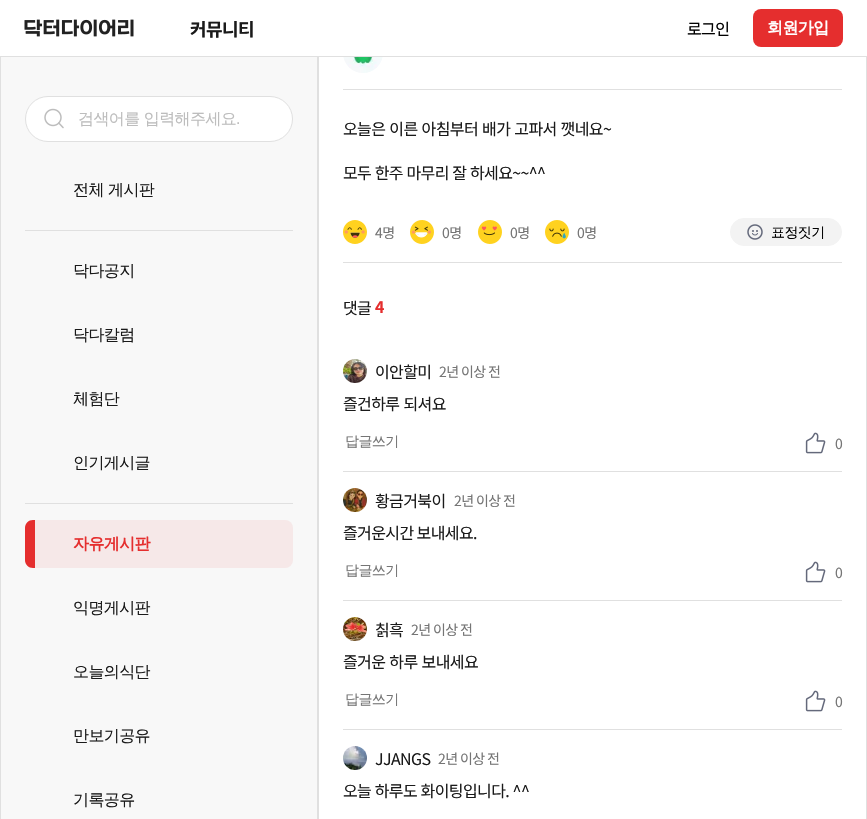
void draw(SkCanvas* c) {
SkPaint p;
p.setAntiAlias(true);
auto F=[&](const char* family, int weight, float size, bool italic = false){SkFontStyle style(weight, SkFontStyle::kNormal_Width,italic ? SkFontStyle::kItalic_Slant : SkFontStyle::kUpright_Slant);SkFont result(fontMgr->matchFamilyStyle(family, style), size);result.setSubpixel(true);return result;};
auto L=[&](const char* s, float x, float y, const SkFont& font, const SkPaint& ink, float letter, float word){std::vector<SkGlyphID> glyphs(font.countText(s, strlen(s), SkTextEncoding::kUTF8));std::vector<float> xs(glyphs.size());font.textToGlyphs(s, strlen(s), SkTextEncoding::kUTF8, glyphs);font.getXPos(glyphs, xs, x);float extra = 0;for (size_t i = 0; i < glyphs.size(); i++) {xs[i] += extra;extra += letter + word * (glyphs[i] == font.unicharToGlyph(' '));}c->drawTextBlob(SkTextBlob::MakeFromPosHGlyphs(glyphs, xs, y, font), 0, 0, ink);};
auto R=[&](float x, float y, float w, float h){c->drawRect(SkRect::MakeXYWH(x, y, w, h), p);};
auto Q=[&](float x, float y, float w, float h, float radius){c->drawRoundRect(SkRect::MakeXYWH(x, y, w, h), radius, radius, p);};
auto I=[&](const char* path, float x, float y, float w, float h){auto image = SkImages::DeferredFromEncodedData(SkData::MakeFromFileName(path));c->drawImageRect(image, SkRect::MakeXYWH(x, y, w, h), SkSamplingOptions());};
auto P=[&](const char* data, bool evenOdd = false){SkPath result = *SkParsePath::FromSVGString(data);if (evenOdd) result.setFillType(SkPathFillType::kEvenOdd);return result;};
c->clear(0xffffffff);
p.setStroke(true);
p.setStrokeWidth(1);
p.setColor(0xffe0e0e0);
c->drawRect(SkRect::MakeXYWH(318.5,-.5,548,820),p);
p.setStroke(false);
p.setColor(0xffffffff);
R(318,0,549,56);
p.setColor(0xffe0e0e0);
R(0,56,867,1);
I("1.png",24,19,110,18);
auto f1 = F("Noto Sans KR",700,18);
p.setColor(0xff1a1a1a);
L("커뮤니티",190,36,f1,p,-.6,0);
auto f2 = F("Noto Sans KR",400,16);
p.setColor(0xff000000);
L("로그인",687,35,f2,p,-.6,0);
p.setColor(0xffe52e2e);
Q(753,9,90,38,8);
auto f3 = F("WenQuanYi Zen Hei",700,16);
p.setColor(0xffffffff);
L("회원가입",767,33,f3,p,-.6,0);
p.setColor(0xfff8f8f8);
R(1,57,316,762);
p.setColor(0xffe0e0e0);
R(317,57,1,762);
R(0,57,1,762);
p.setColor(0xffffffff);
c->drawRoundRect(SkRect::MakeXYWH(25.5,96.5,267,45),22.5,22.5,p);
p.setStroke(true);
p.setColor(0xffe0e0e0);
c->drawRoundRect(SkRect::MakeXYWH(25.5,96.5,267,45),22.5,22.5,p);
I("2.png",44,108,20,21);
auto f4 = F("WenQuanYi Zen Hei",500,16);
p.setStroke(false);
p.setColor(0xffbdbdbd);
L("검색어를 입력해주세요",78,124,f4,p,-.6,0);
auto f5 = F("Liberation Sans",400,16);
L(".",236,124,f5,p,-.6,0);
p.setColor(0xff1a1a1a);
L("전체 게시판",73,195,f4,p,-.6,0);
p.setColor(0xffe0e0e0);
R(25,230,268,1);
p.setColor(0xff1a1a1a);
L("닥다공지",73,276,f4,p,-.6,0);
L("닥다칼럼",73,340,f4,p,-.6,0);
L("체험단",73,404,f4,p,-.6,0);
L("인기게시글",73,468,f4,p,-.6,0);
p.setColor(0xffe0e0e0);
R(25,503,268,1);
p.setColor(0xfff6e8e8);
Q(25,520,268,48,8);
p.setColor(0xffe52e2e);
c->drawPath(P("M33 520h2v48h-2c-4.5 0-8-3.5-8-8v-32c0-4.5 3.5-8 8-8z"),p);
L("자유게시판",73,549,f3,p,-.6,0);
p.setColor(0xff1a1a1a);
L("익명게시판",73,613,f4,p,-.6,0);
L("오늘의식단",73,677,f4,p,-.6,0);
L("만보기공유",73,741,f4,p,-.6,0);
L("기록공유",73,805,f4,p,-.6,0);
I("3.png",343,57,40,16);
p.setColor(0xffe0e0e0);
R(343,89,499,1);
p.setColor(0xff1a1a1a);
L("오늘은 이른 아침부터 배가 고파서 깻네요~",343,135,f2,p,-.6,1);
L("모두 한주 마무리 잘 하세요~~^^",343,179,f2,p,-.6,.5);
I("4.png",343,220,24,24);
auto f6 = F("Noto Sans KR",400,14);
p.setColor(0xff757575);
L("4명",375,238,f6,p,-.6,0);
I("5.png",410,220,24,24);
L("0명",442,238,f6,p,-.6,0);
I("6.png",478,220,24,24);
L("0명",510,238,f6,p,-.6,0);
I("7.png",545,220,24,24);
L("0명",577,238,f6,p,-.6,0);
p.setColor(0xfff3f3f3);
c->drawRoundRect(SkRect::MakeXYWH(730.5,218.5,111,27),13.5,13.5,p);
p.setStroke(true);
c->drawRoundRect(SkRect::MakeXYWH(730.5,218.5,111,27),13.5,13.5,p);
I("8.png",747,224,16,16);
auto f7 = F("WenQuanYi Zen Hei",500,14);
p.setStroke(false);
p.setColor(0xff000000);
L("표정짓기",771,237,f7,p,-.6,0);
p.setColor(0xffe0e0e0);
R(343,262,499,1);
p.setColor(0xff1a1a1a);
L("댓글",343,314,f2,p,-.6,0);
auto f8 = F("Noto Sans KR",700,16);
p.setColor(0xffe52e2e);
L("4",375,313,f8,p,-.6,0);
p.setColor(0xffe0e0e0);
R(343,471,499,1);
I("9.png",343,359,24,24);
p.setColor(0xff1a1a1a);
L("이안할미",375,378,f2,p,-.6,0);
p.setColor(0xff757575);
L("2년 이상 전",439,377,f6,p,-.6,0);
p.setColor(0xff1a1a1a);
L("즐건하루 되셔요",343,410,f2,p,-.6,1);
p.setColor(0xff757575);
L("답글쓰기",345,446,f7,p,-.6,0);
I("10.png",805,432,21,22);
L("0",835,449,f6,p,-.6,0);
p.setColor(0xffe0e0e0);
R(343,600,499,1);
I("11.png",343,488,24,24);
p.setColor(0xff1a1a1a);
L("황금거북이",375,507,f2,p,-.6,0);
p.setColor(0xff757575);
L("2년 이상 전",454,506,f6,p,-.6,0);
p.setColor(0xff1a1a1a);
L("즐거운시간 보내세요.",343,539,f2,p,-.6,0);
p.setColor(0xff757575);
L("답글쓰기",345,575,f7,p,-.6,0);
I("10.png",805,561,21,22);
L("0",835,578,f6,p,-.6,0);
p.setColor(0xffe0e0e0);
R(343,729,499,1);
I("12.png",343,617,24,24);
p.setColor(0xff1a1a1a);
L("칡흑",375,636,f2,p,-.6,0);
p.setColor(0xff757575);
L("2년 이상 전",411,635,f6,p,-.6,0);
p.setColor(0xff1a1a1a);
L("즐거운 하루 보내세요",343,668,f2,p,-.6,1);
p.setColor(0xff757575);
L("답글쓰기",345,704,f7,p,-.6,0);
I("10.png",805,690,21,22);
L("0",835,707,f6,p,-.6,0);
I("13.png",343,746,24,24);
p.setColor(0xff1a1a1a);
L("JJANGS",375,765,f2,p,-.6,0);
p.setColor(0xff757575);
L("2년 이상 전",438,764,f6,p,-.6,0);
p.setColor(0xff1a1a1a);
L("오늘 하루도 화이팅입니다. ^^",343,797,f2,p,-.6,.5);
}
